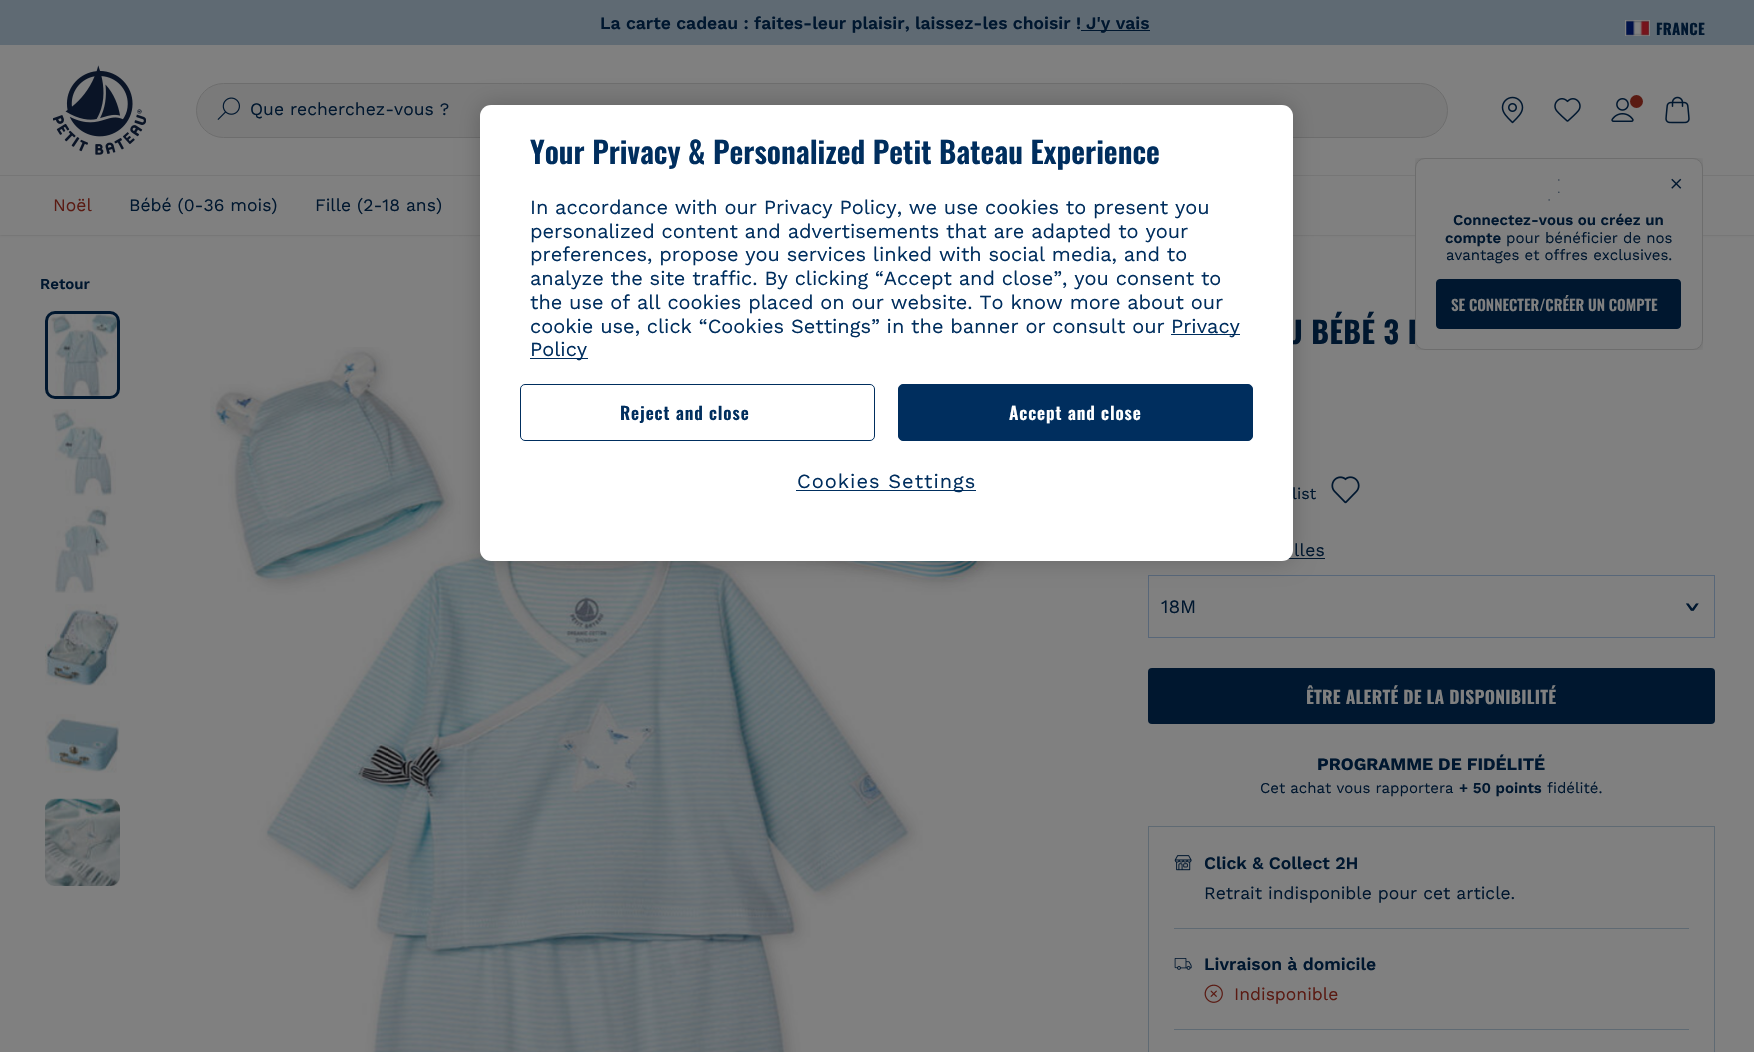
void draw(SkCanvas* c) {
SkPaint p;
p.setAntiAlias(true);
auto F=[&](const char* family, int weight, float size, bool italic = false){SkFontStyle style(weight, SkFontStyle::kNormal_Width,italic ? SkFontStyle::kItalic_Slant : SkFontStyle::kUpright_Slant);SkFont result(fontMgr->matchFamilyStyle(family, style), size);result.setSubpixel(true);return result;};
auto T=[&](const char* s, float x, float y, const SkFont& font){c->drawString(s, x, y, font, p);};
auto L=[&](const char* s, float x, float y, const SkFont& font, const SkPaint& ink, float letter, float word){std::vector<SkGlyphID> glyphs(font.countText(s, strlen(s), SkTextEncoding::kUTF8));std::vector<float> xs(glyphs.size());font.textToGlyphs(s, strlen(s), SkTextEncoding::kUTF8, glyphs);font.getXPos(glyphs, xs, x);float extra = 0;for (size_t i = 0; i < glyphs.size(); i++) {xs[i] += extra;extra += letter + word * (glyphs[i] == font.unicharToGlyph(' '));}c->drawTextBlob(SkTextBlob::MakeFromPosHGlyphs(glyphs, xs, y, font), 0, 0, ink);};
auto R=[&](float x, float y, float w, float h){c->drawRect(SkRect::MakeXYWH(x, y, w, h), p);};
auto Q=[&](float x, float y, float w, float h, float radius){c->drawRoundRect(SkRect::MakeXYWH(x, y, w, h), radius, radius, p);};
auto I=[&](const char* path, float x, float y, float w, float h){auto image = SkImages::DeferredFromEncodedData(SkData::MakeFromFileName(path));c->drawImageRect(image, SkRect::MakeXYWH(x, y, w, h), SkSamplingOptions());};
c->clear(0xff808080);
p.setColor(0x33000000);
p.setMaskFilter(SkMaskFilter::MakeBlur(kNormal_SkBlurStyle, 1));
c->drawRect(SkRect::MakeXYWH(0,0,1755,235),p);
p.setMaskFilter(nullptr);
p.setColor(0xff808080);
R(0,45,1754,190);
p.setColor(0xff5f6a73);
R(0,0,1754,45);
auto f1 = F("Work Sans",600,17.5);
p.setColor(0xff00172f);
T("La carte cadeau : faites-leur plaisir, laissez-les choisir !",600,29,f1);
R(1081,30,69,1);
T("J'y vais",1086,29,f1);
p.setStroke(true);
p.setStrokeWidth(1);
p.setColor(0xff808080);
c->drawRect(SkRect::MakeXYWH(1625.5,20.5,24,15),p);
I("1.png",1626,20,23,16);
auto f2 = F("Oswald",700,15);
p.setStroke(false);
p.setColor(0xff00172f);
L("FRANCE",1656,35,f2,p,.25,0);
auto f3 = F("Work Sans",400,17.5);
p.setColor(0xff5a1a12);
T("Noël",53,211,f3);
p.setColor(0xff00172f);
T("Bébé (0-36 mois)",129,211,f3);
T("Fille (2-18 ans)",315,211,f3);
I("2.png",53,65,93,90);
p.setColor(0xff7a7a7a);
c->drawRoundRect(SkRect::MakeXYWH(196.5,83.5,1251,54),27,27,p);
p.setStroke(true);
p.setColor(0xff6d6d6d);
c->drawRoundRect(SkRect::MakeXYWH(196.5,83.5,1251,54),27,27,p);
I("3.png",217,97,23,23);
p.setStroke(false);
p.setColor(0xff00172f);
T("Que recherchez-vous ?",250,115,f3);
p.setColor(0xff767676);
R(0,175,1754,1);
I("4.png",1501,96,23,28);
I("5.png",1554,98,27,24);
I("6.png",1611,98,23,24);
p.setColor(0xff5a1a12);
c->drawCircle(1636.5,101.5,6.5,p);
I("7.png",1665,96,25,28);
c->save();
c->clipRect(SkRect::MakeXYWH(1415,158,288,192));
p.setColor(0x24000000);
p.setMaskFilter(SkMaskFilter::MakeBlur(kNormal_SkBlurStyle, 4.5));
c->drawRoundRect(SkRect::MakeXYWH(1415,158,288,192),10,10,p);
p.setMaskFilter(nullptr);
c->restore();
auto f4 = F("Oswald",700,30);
p.setColor(0xff00172f);
L("U BÉBÉ 3 P",1285,344,f4,p,.5,0);
p.setColor(0xff808080);
c->drawRoundRect(SkRect::MakeXYWH(1415.5,158.5,287,191),9.5,9.5,p);
p.setStroke(true);
p.setColor(0xff6d6d6d);
c->drawRoundRect(SkRect::MakeXYWH(1415.5,158.5,287,191),9.5,9.5,p);
I("8.png",1548,179,12,22);
I("9.png",1671,178,11,11);
auto f5 = F("Work Sans",600,15);
p.setStroke(false);
p.setColor(0xff00172f);
T("Connectez-vous ou créez un",1453,225,f5);
T("compte",1445,243,f5);
auto f6 = F("Work Sans",400,15);
T("pour bénéficier de nos",1506,243,f6);
T("avantages et offres exclusives.",1446,260,f6);
c->drawRoundRect(SkRect::MakeXYWH(1436.5,279.5,244,49),3.5,3.5,p);
p.setStroke(true);
c->drawRoundRect(SkRect::MakeXYWH(1436.5,279.5,244,49),3.5,3.5,p);
auto f7 = F("Oswald",600,15);
p.setStroke(false);
p.setColor(0xff808080);
T("SE CONNECTER/CRÉER UN COMPTE",1451,311,f7);
p.setColor(0xff00172f);
T("Retour",40,289,f5);
I("10.png",50,311,69,87);
p.setStroke(true);
p.setStrokeWidth(3);
c->drawRoundRect(SkRect::MakeXYWH(46.5,312.5,72,85),8.5,8.5,p);
I("11.png",52,409,64,87);
I("12.png",55,506,55,87);
I("13.png",45,604,75,82);
I("14.png",45,714,75,59);
I("15.png",45,798,75,88);
I("16.png",210,347,831,705);
auto f8 = F("Work Sans",400,16);
p.setStroke(false);
T("list",1292,499,f8);
I("17.png",1331,476,29,28);
L("lles",1294,556,f3,p,.25,0);
R(1288,558,37,1);
p.setStroke(true);
p.setStrokeWidth(1);
p.setColor(0xff586779);
c->drawRect(SkRect::MakeXYWH(1148.5,575.5,566,62),p);
auto f9 = F("Work Sans",400,19);
p.setStroke(false);
p.setColor(0xff00172f);
T("18M",1161,613,f9);
auto f10 = F("Oswald",400,25);
c->save();
c->rotate(90,1685,602);
T(">",1685,602,f10);
c->restore();
Q(1148,668,567,56,4);
auto f11 = F("Oswald",700,17.5);
p.setColor(0xff808080);
L("ÊTRE ALERTÉ DE LA DISPONIBILITÉ",1306,704,f11,p,.25,0);
auto f12 = F("Work Sans",700,17.5);
p.setColor(0xff00172f);
T("PROGRAMME DE FIDÉLITÉ",1317,770,f12);
T("Cet achat vous rapportera",1260,793,f6);
T("+ 50 points",1459,793,f5);
T("fidélité.",1547,793,f6);
p.setStroke(true);
p.setColor(0xff5f6a73);
c->drawRect(SkRect::MakeXYWH(1148.5,826.5,566,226),p);
I("18.png",1174,855,18,16);
p.setStroke(false);
p.setColor(0xff00172f);
T("Click & Collect 2H",1204,869,f1);
T("Retrait indisponible pour cet article.",1204,899,f3);
p.setColor(0xff5f6a73);
R(1174,928,515,1);
I("19.png",1174,958,18,12);
p.setColor(0xff00172f);
T("Livraison à domicile",1204,970,f1);
I("20.png",1204,984,19,19);
p.setColor(0xff5a1a12);
T("Indisponible",1234,1000,f3);
p.setColor(0xff5f6a73);
R(1174,1029,515,1);
p.setColor(0x33000000);
p.setMaskFilter(SkMaskFilter::MakeBlur(kNormal_SkBlurStyle, 11));
c->drawRoundRect(SkRect::MakeXYWH(480,105,813,456),11,11,p);
p.setMaskFilter(nullptr);
p.setColor(0xffffffff);
Q(480,105,813,456,11);
auto f13 = F("Oswald",600,30);
p.setColor(0xff002e5e);
T("Your Privacy & Personalized Petit Bateau Experience",530,164,f13);
auto f14 = F("Work Sans",400,20);
T("In accordance with our Privacy Policy, we use cookies to present you",530,214,f14);
T("personalized content and advertisements that are adapted to your",530,238,f14);
T("preferences, propose you services linked with social media, and to",530,261,f14);
T("analyze the site traffic. By clicking “Accept and close”, you consent to",530,285,f14);
T("the use of all cookies placed on our website. To know more about our",530,309,f14);
T("cookie use, click “Cookies Settings” in the banner or consult our",530,333,f14);
R(1171,334,69,1);
T("Privacy",1171,333,f14);
R(530,358,58,1);
T("Policy",530,356,f14);
p.setStroke(true);
c->drawRoundRect(SkRect::MakeXYWH(520.5,384.5,354,56),4.5,4.5,p);
auto f15 = F("Oswald",600,17.5);
p.setStroke(false);
L("Reject and close",620,420,f15,p,.9,0);
c->drawRoundRect(SkRect::MakeXYWH(898.5,384.5,354,56),4.5,4.5,p);
p.setStroke(true);
c->drawRoundRect(SkRect::MakeXYWH(898.5,384.5,354,56),4.5,4.5,p);
p.setStroke(false);
p.setColor(0xffffffff);
L("Accept and close",1009,420,f15,p,.9,0);
p.setColor(0xff002e5e);
R(796,490,180,1);
L("Cookies Settings",797,488,f14,p,1,0);
}
